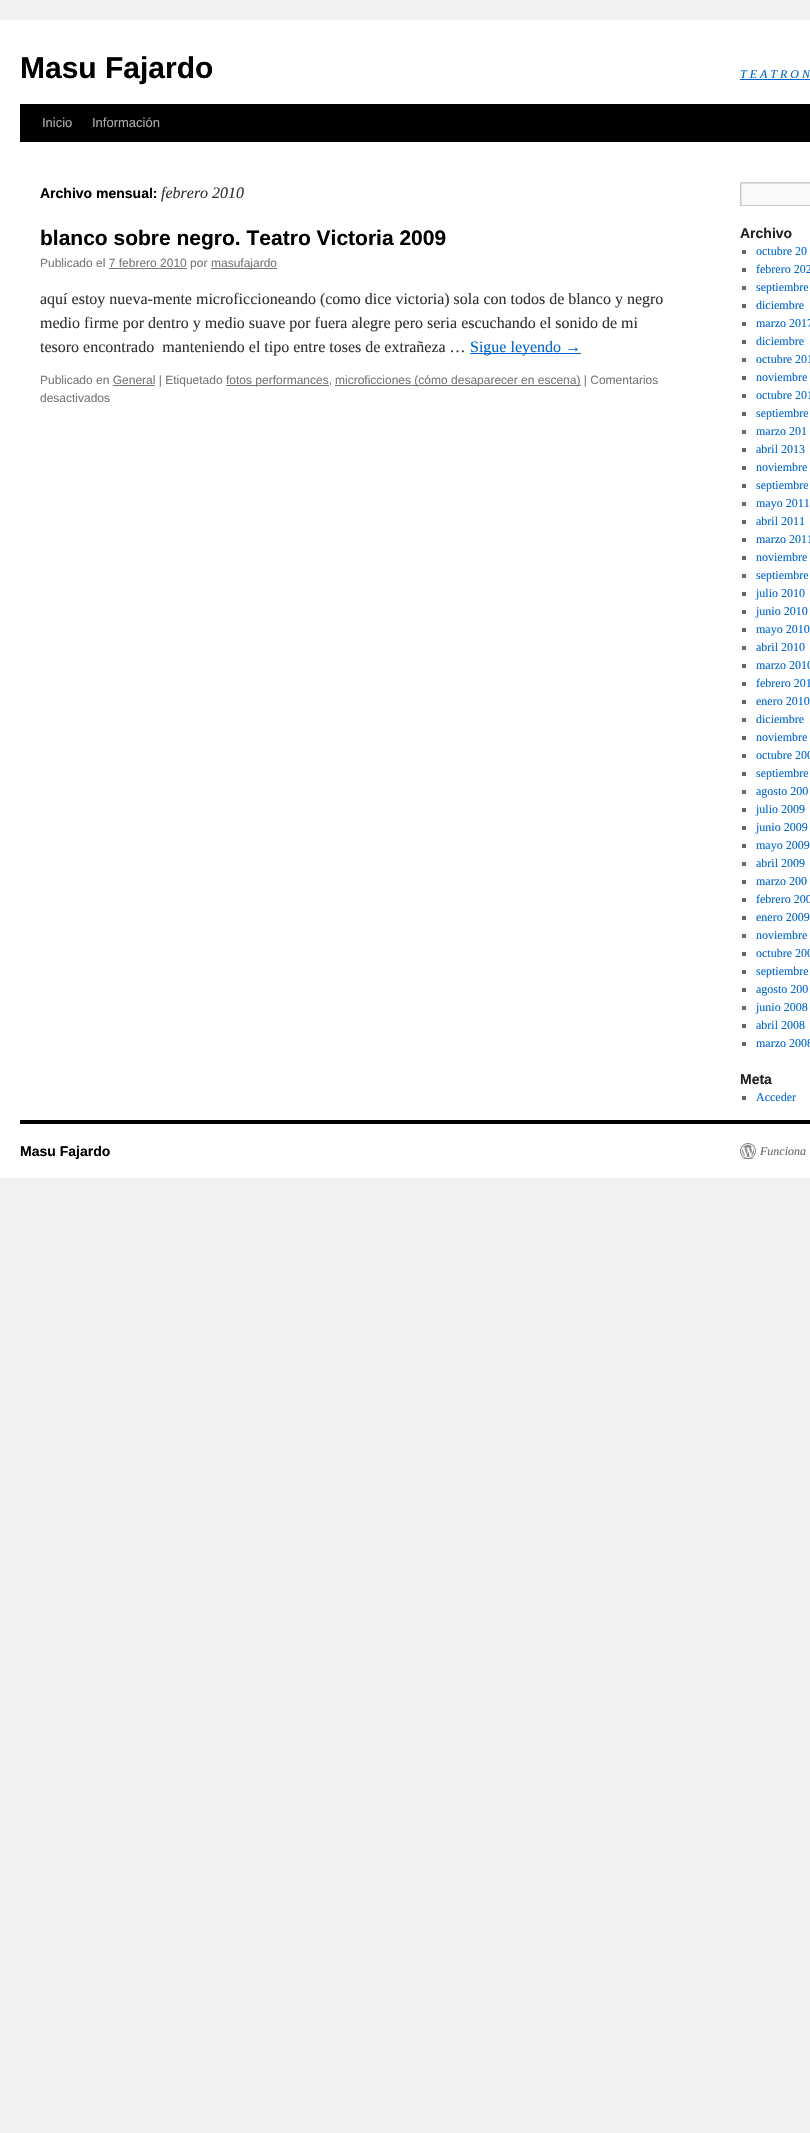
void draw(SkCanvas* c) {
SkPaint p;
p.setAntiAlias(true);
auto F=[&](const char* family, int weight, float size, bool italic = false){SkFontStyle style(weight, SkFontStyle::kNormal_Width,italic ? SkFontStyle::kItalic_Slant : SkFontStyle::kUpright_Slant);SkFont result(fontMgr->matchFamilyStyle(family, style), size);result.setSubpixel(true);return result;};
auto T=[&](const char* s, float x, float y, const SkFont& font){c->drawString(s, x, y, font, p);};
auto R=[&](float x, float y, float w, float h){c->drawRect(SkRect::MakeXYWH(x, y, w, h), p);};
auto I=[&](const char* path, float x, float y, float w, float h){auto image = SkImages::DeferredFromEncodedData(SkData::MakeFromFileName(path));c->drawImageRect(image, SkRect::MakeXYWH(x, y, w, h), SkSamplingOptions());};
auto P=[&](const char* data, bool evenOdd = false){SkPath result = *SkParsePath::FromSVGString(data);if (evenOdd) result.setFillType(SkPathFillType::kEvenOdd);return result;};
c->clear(0xfff1f1f1);
p.setColor(0xffffffff);
R(0,20,810,1158);
auto f1 = F("Liberation Sans",700,30);
p.setColor(0xff000000);
T("Masu Fajardo",20,78,f1);
auto f2 = F("Liberation Serif",400,12,true);
p.setColor(0xff0066cc);
T("T E A T R O N",740,78,f2);
R(740,79,70,1);
p.setColor(0xff000000);
R(20,104,790,38);
auto f3 = F("Liberation Sans",400,13);
p.setColor(0xffaaaaaa);
T("Inicio",42,127,f3);
T("Información",92,127,f3);
auto f4 = F("Liberation Sans",700,14);
p.setColor(0xff000000);
T("Archivo mensual:",40,198,f4);
auto f5 = F("Liberation Serif",400,16,true);
p.setColor(0xff333333);
T("febrero 2010",161,198,f5);
auto f6 = F("Liberation Sans",700,21);
p.setColor(0xff000000);
T("blanco sobre negro. Teatro Victoria 2009",40,245,f6);
auto f7 = F("Liberation Sans",400,12);
p.setColor(0xff777777);
T("Publicado el 7 febrero 2010 por",40,267,f7);
R(211,268,66,1);
T("masufajardo",211,267,f7);
R(109,268,78,1);
auto f8 = F("Liberation Serif",400,16);
p.setColor(0xff333333);
T("aquí estoy nueva-mente microficcioneando (como dice victoria) sola con todos de blanco y negro",40,304,f8);
T("medio firme por dentro y medio suave por fuera alegre pero seria escuchando el sonido de mi",40,328,f8);
T("tesoro encontrado  manteniendo el tipo entre toses de extrañeza …",40,352,f8);
p.setColor(0xff0066cc);
R(470,353,111,1);
T("Sigue leyendo →",470,352,f8);
p.setColor(0xff777777);
T("Publicado en General | Etiquetado",40,384,f7);
R(113,385,42,1);
R(226,385,103,1);
T("fotos performances,",226,384,f7);
R(335,385,246,1);
T("microficciones (cómo desaparecer en escena) | Comentarios",335,384,f7);
T("desactivados",40,402,f7);
p.setColor(0xfff9f9f9);
R(742,184,68,21);
c->save();
c->clipRect(SkRect::MakeXYWH(741,183,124,22));
p.setColor(0xffe0e0e0);
c->drawPath(P("M642 84h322v220h-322zm100 100h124v22h-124z",true),p);
c->restore();
p.setStroke(true);
p.setStrokeWidth(1);
p.setColor(0xffcccccc);
c->drawRect(SkRect::MakeXYWH(740.5,182.5,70,23),p);
p.setStroke(false);
p.setColor(0xff222222);
T("Archivo",740,238,f4);
p.setColor(0xff666666);
R(742,250,4,4);
auto f9 = F("Liberation Serif",400,12);
p.setColor(0xff0066cc);
T("octubre 20",756,255,f9);
p.setColor(0xff666666);
R(742,268,4,4);
p.setColor(0xff0066cc);
T("febrero 202",756,273,f9);
p.setColor(0xff666666);
R(742,286,4,4);
p.setColor(0xff0066cc);
T("septiembre",756,291,f9);
p.setColor(0xff666666);
R(742,304,4,4);
p.setColor(0xff0066cc);
T("diciembre",756,309,f9);
p.setColor(0xff666666);
R(742,322,4,4);
p.setColor(0xff0066cc);
T("marzo 2017",756,327,f9);
p.setColor(0xff666666);
R(742,340,4,4);
p.setColor(0xff0066cc);
T("diciembre",756,345,f9);
p.setColor(0xff666666);
R(742,358,4,4);
p.setColor(0xff0066cc);
T("octubre 201",756,363,f9);
p.setColor(0xff666666);
R(742,376,4,4);
p.setColor(0xff0066cc);
T("noviembre",756,381,f9);
p.setColor(0xff666666);
R(742,394,4,4);
p.setColor(0xff0066cc);
T("octubre 201",756,399,f9);
p.setColor(0xff666666);
R(742,412,4,4);
p.setColor(0xff0066cc);
T("septiembre",756,417,f9);
p.setColor(0xff666666);
R(742,430,4,4);
p.setColor(0xff0066cc);
T("marzo 201",756,435,f9);
p.setColor(0xff666666);
R(742,448,4,4);
p.setColor(0xff0066cc);
T("abril 2013",756,453,f9);
p.setColor(0xff666666);
R(742,466,4,4);
p.setColor(0xff0066cc);
T("noviembre",756,471,f9);
p.setColor(0xff666666);
R(742,484,4,4);
p.setColor(0xff0066cc);
T("septiembre",756,489,f9);
p.setColor(0xff666666);
R(742,502,4,4);
p.setColor(0xff0066cc);
T("mayo 2011",756,507,f9);
p.setColor(0xff666666);
R(742,520,4,4);
p.setColor(0xff0066cc);
T("abril 2011",756,525,f9);
p.setColor(0xff666666);
R(742,538,4,4);
p.setColor(0xff0066cc);
T("marzo 2011",756,543,f9);
p.setColor(0xff666666);
R(742,556,4,4);
p.setColor(0xff0066cc);
T("noviembre",756,561,f9);
p.setColor(0xff666666);
R(742,574,4,4);
p.setColor(0xff0066cc);
T("septiembre",756,579,f9);
p.setColor(0xff666666);
R(742,592,4,4);
p.setColor(0xff0066cc);
T("julio 2010",756,597,f9);
p.setColor(0xff666666);
R(742,610,4,4);
p.setColor(0xff0066cc);
T("junio 2010",756,615,f9);
p.setColor(0xff666666);
R(742,628,4,4);
p.setColor(0xff0066cc);
T("mayo 2010",756,633,f9);
p.setColor(0xff666666);
R(742,646,4,4);
p.setColor(0xff0066cc);
T("abril 2010",756,651,f9);
p.setColor(0xff666666);
R(742,664,4,4);
p.setColor(0xff0066cc);
T("marzo 2010",756,669,f9);
p.setColor(0xff666666);
R(742,682,4,4);
p.setColor(0xff0066cc);
T("febrero 201",756,687,f9);
p.setColor(0xff666666);
R(742,700,4,4);
p.setColor(0xff0066cc);
T("enero 2010",756,705,f9);
p.setColor(0xff666666);
R(742,718,4,4);
p.setColor(0xff0066cc);
T("diciembre",756,723,f9);
p.setColor(0xff666666);
R(742,736,4,4);
p.setColor(0xff0066cc);
T("noviembre",756,741,f9);
p.setColor(0xff666666);
R(742,754,4,4);
p.setColor(0xff0066cc);
T("octubre 200",756,759,f9);
p.setColor(0xff666666);
R(742,772,4,4);
p.setColor(0xff0066cc);
T("septiembre",756,777,f9);
p.setColor(0xff666666);
R(742,790,4,4);
p.setColor(0xff0066cc);
T("agosto 200",756,795,f9);
p.setColor(0xff666666);
R(742,808,4,4);
p.setColor(0xff0066cc);
T("julio 2009",756,813,f9);
p.setColor(0xff666666);
R(742,826,4,4);
p.setColor(0xff0066cc);
T("junio 2009",756,831,f9);
p.setColor(0xff666666);
R(742,844,4,4);
p.setColor(0xff0066cc);
T("mayo 2009",756,849,f9);
p.setColor(0xff666666);
R(742,862,4,4);
p.setColor(0xff0066cc);
T("abril 2009",756,867,f9);
p.setColor(0xff666666);
R(742,880,4,4);
p.setColor(0xff0066cc);
T("marzo 200",756,885,f9);
p.setColor(0xff666666);
R(742,898,4,4);
p.setColor(0xff0066cc);
T("febrero 200",756,903,f9);
p.setColor(0xff666666);
R(742,916,4,4);
p.setColor(0xff0066cc);
T("enero 2009",756,921,f9);
p.setColor(0xff666666);
R(742,934,4,4);
p.setColor(0xff0066cc);
T("noviembre",756,939,f9);
p.setColor(0xff666666);
R(742,952,4,4);
p.setColor(0xff0066cc);
T("octubre 200",756,957,f9);
p.setColor(0xff666666);
R(742,970,4,4);
p.setColor(0xff0066cc);
T("septiembre",756,975,f9);
p.setColor(0xff666666);
R(742,988,4,4);
p.setColor(0xff0066cc);
T("agosto 200",756,993,f9);
p.setColor(0xff666666);
R(742,1006,4,4);
p.setColor(0xff0066cc);
T("junio 2008",756,1011,f9);
p.setColor(0xff666666);
R(742,1024,4,4);
p.setColor(0xff0066cc);
T("abril 2008",756,1029,f9);
p.setColor(0xff666666);
R(742,1042,4,4);
p.setColor(0xff0066cc);
T("marzo 2008",756,1047,f9);
p.setColor(0xff222222);
T("Meta",740,1084,f4);
p.setColor(0xff666666);
R(742,1096,4,4);
p.setColor(0xff0066cc);
T("Acceder",756,1101,f9);
p.setColor(0xff000000);
R(20,1120,790,4);
T("Masu Fajardo",20,1156,f4);
I("1.png",740,1143,16,16);
p.setColor(0xff666666);
T("Funciona",760,1155,f2);
}
